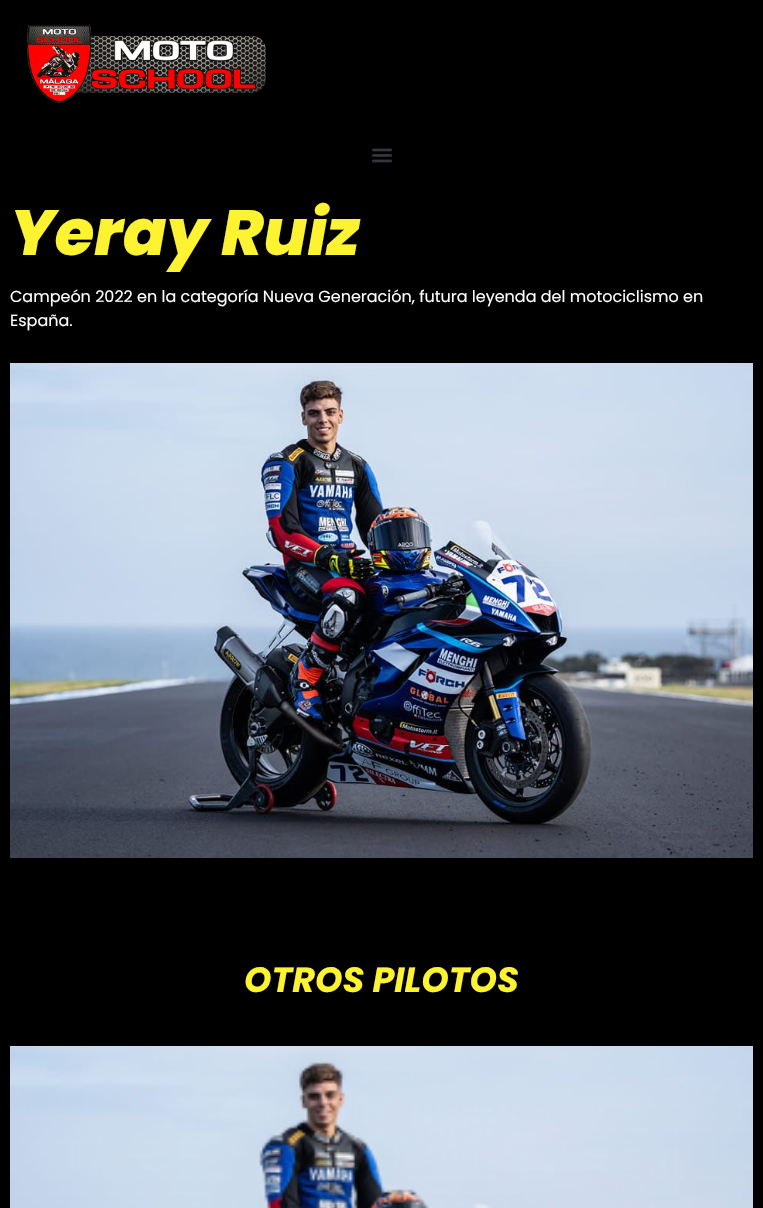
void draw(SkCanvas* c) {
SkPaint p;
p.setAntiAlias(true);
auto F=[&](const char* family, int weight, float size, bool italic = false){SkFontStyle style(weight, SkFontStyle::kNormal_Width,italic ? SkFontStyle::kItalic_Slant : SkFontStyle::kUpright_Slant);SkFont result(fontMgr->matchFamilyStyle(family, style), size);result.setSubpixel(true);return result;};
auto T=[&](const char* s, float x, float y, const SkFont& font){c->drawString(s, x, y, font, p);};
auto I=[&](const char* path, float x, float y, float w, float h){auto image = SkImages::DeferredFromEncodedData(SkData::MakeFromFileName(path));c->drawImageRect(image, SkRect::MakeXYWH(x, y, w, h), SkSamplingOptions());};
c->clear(0xff000000);
I("1.png",27,25,239,78);
I("2.png",372,148,20,15);
auto f1 = F("Poppins",800,64,true);
p.setColor(0xfffdf331);
T("Yeray Ruiz",10,255,f1);
auto f2 = F("Poppins",400,16);
p.setColor(0xffffffff);
T("Campeón 2022 en la categoría Nueva Generación, futura leyenda del motociclismo en",10,302,f2);
T("España.",10,326,f2);
I("3.png",10,363,743,495);
auto f3 = F("Poppins",700,35,true);
p.setColor(0xfffdf331);
T("OTROS PILOTOS",244,992,f3);
I("4.png",10,1046,743,162);
}
